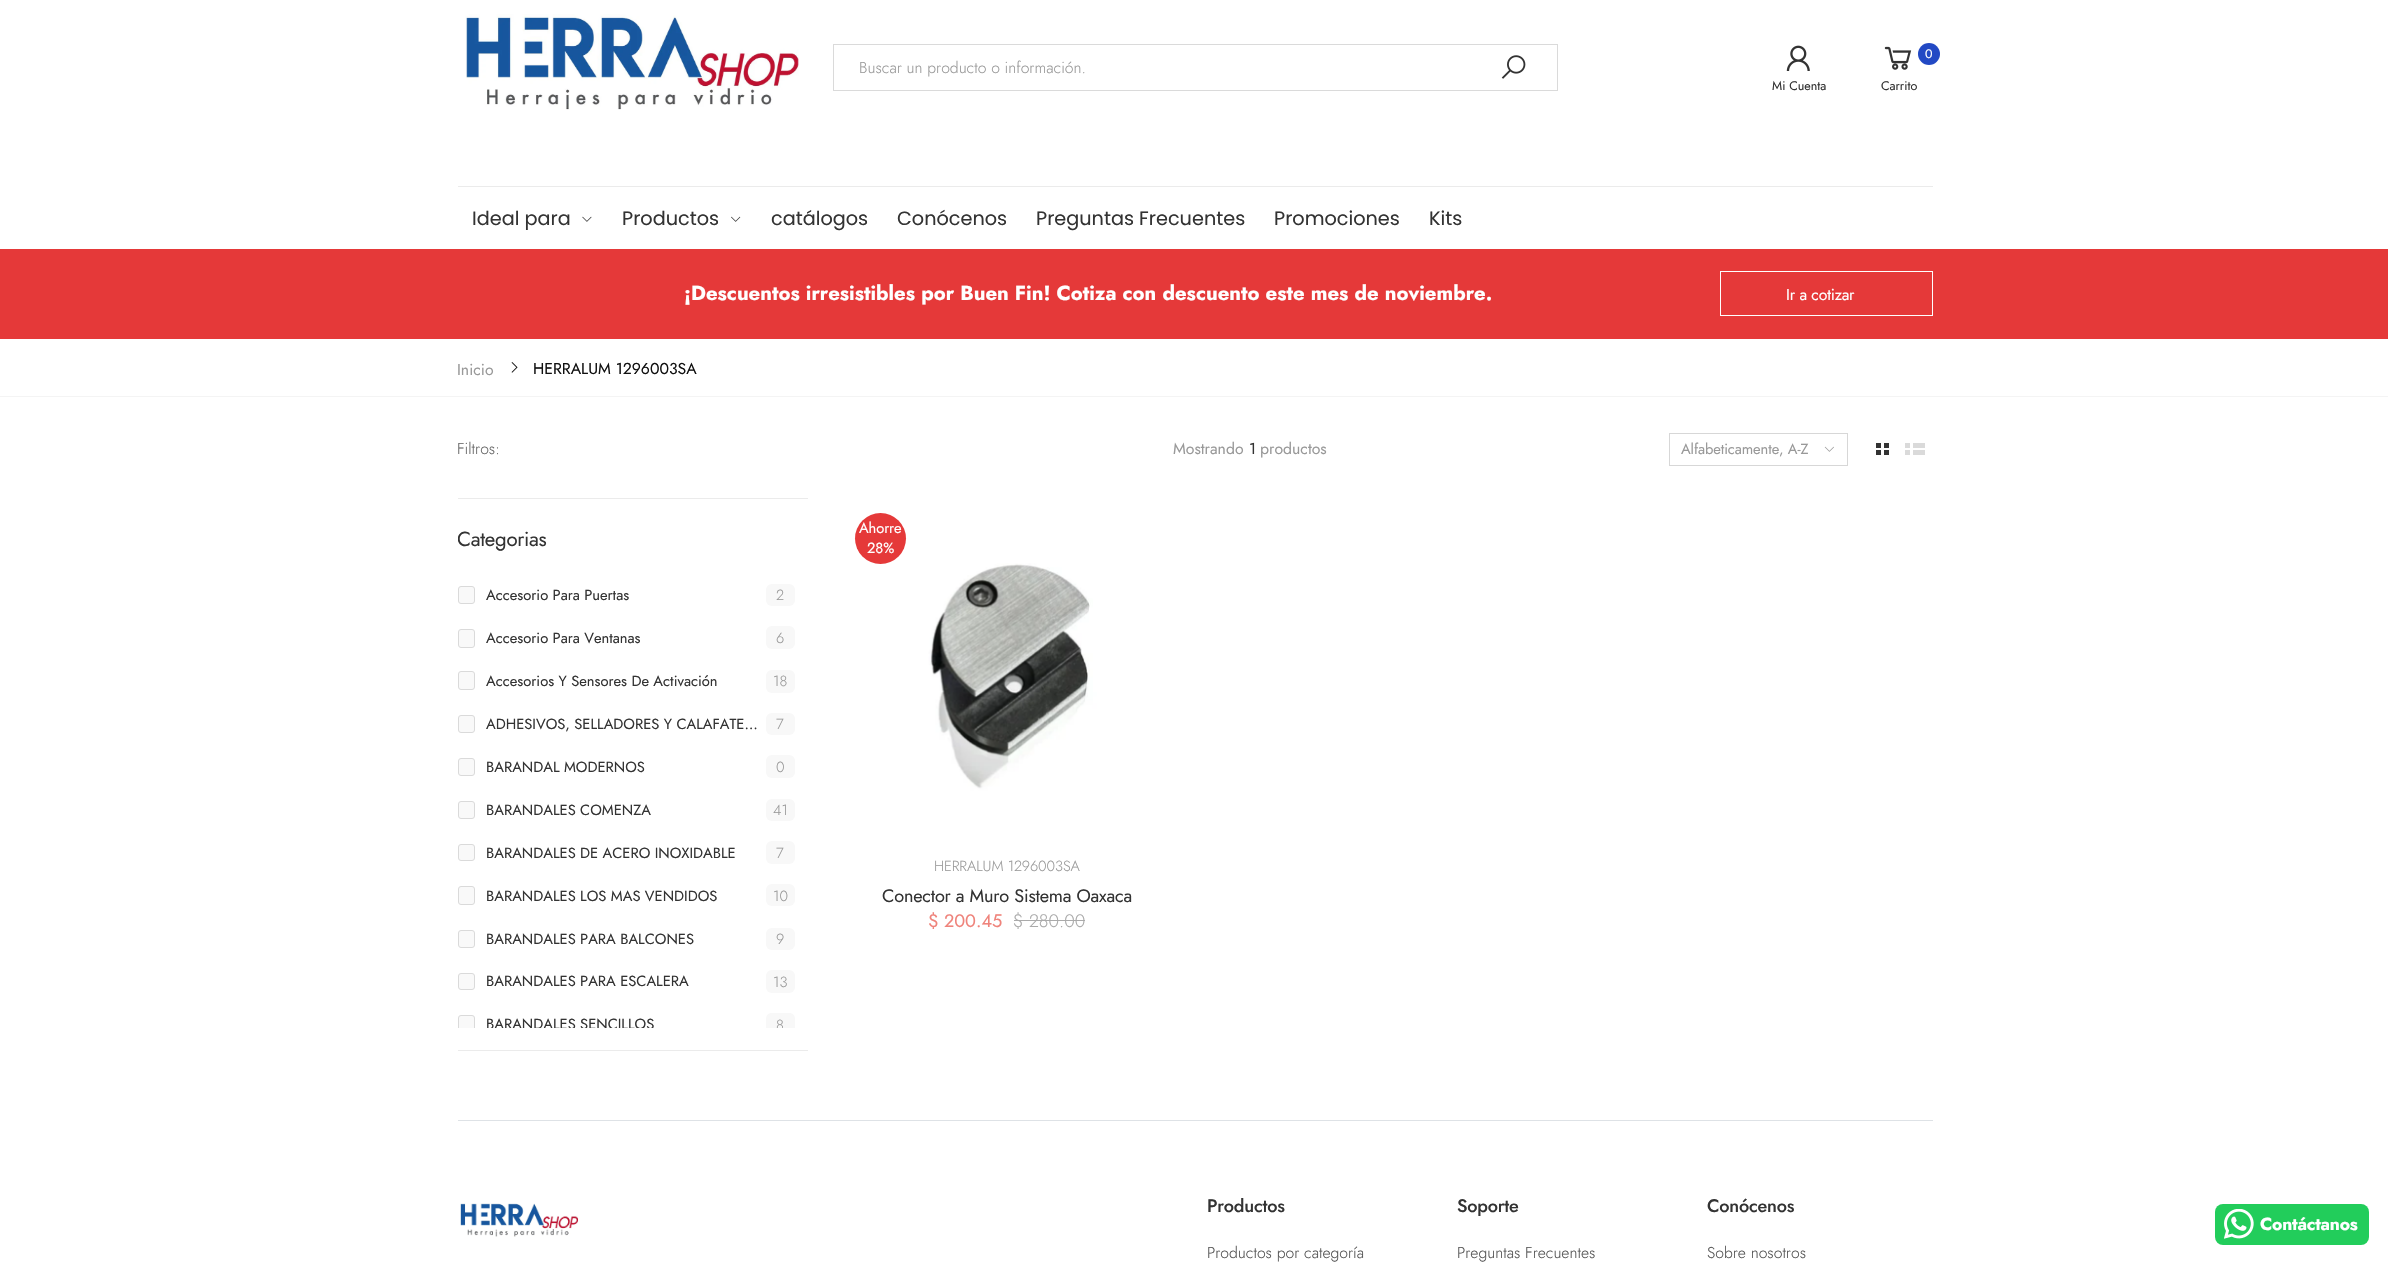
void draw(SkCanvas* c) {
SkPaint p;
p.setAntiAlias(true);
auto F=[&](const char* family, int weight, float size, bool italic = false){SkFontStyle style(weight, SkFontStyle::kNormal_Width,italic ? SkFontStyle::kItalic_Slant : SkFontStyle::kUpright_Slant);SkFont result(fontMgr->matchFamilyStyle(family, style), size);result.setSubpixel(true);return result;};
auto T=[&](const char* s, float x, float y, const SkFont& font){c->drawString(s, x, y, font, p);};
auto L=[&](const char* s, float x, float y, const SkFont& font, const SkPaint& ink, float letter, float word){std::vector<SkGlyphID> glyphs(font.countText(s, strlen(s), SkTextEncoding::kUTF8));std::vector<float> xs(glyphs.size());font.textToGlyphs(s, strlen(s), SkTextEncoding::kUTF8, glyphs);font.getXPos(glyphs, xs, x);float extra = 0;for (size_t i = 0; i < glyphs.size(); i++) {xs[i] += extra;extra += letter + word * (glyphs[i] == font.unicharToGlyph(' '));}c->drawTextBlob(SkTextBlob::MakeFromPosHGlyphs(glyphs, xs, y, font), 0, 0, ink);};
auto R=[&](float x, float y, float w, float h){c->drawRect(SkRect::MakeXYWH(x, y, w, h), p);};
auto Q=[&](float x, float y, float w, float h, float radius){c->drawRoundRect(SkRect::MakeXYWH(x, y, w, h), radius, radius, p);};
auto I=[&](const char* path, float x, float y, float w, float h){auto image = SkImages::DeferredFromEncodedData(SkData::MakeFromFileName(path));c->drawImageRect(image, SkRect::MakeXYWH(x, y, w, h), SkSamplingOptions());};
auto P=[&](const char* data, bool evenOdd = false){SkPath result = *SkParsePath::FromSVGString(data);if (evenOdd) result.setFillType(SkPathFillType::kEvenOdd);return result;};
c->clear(0xffffffff);
I("1.png",465,14,334,96);
p.setStroke(true);
p.setStrokeWidth(1);
p.setColor(0xffdadada);
c->drawRect(SkRect::MakeXYWH(833.5,44.5,724,46),p);
auto f1 = F("Jost",300,15.8);
p.setStroke(false);
p.setColor(0xff999999);
T("Buscar un producto o información.",859,73,f1);
I("2.png",1501,55,25,24);
I("3.png",1786,45,24,26);
auto f2 = F("Jost",400,12.5);
p.setColor(0xff333333);
T("Mi Cuenta",1772,90,f2);
I("4.png",1884,46,28,24);
p.setColor(0xff2249c4);
c->drawCircle(1929,54,11,p);
p.setColor(0xffffffff);
T("0",1925,58,f2);
p.setColor(0xff333333);
T("Carrito",1881,90,f2);
p.setColor(0xffebebeb);
R(458,186,1475,1);
auto f3 = F("Poppins",400,19.25);
p.setColor(0xff333333);
T("Ideal para",472,225,f3);
I("5.png",582,216,10,6);
T("Productos",622,225,f3);
I("6.png",731,216,10,6);
T("catálogos",771,225,f3);
T("Conócenos",897,225,f3);
T("Preguntas Frecuentes",1036,225,f3);
T("Promociones",1274,225,f3);
T("Kits",1429,225,f3);
p.setColor(0xffe53939);
R(0,249,2388,90);
auto f4 = F("Jost",700,20.35);
p.setColor(0xffffffff);
T("¡Descuentos irresistibles por Buen Fin! Cotiza con descuento este mes de noviembre.",684,300,f4);
p.setStroke(true);
c->drawRect(SkRect::MakeXYWH(1720.5,271.5,212,44),p);
auto f5 = F("Jost",400,15.8);
p.setStroke(false);
L("Ir a cotizar",1786,300,f5,p,-.2,0);
p.setColor(0xff999999);
T("Inicio",457,375,f5);
I("7.png",511,362,7,11);
p.setColor(0xff111111);
T("HERRALUM 1296003SA",533,374,f5);
p.setColor(0xfff4f4f4);
R(0,396,2388,1);
p.setColor(0xffebebeb);
R(458,498,350,1);
p.setColor(0xff666666);
T("Filtros:",457,454,f1);
p.setColor(0xffebebeb);
R(458,1050,350,1);
c->save();
c->clipRect(SkRect::MakeXYWH(458,521,337,38));
auto f6 = F("Jost",400,20.35);
p.setColor(0xff333333);
L("Categorias",457,546,f6,p,-.25,0);
c->restore();
p.setColor(0xfff9f9f9);
c->drawRoundRect(SkRect::MakeXYWH(458.5,586.5,16,17),2.5,2.5,p);
p.setStroke(true);
p.setColor(0xffdadada);
c->drawRoundRect(SkRect::MakeXYWH(458.5,586.5,16,17),2.5,2.5,p);
auto f7 = F("Jost",400,14.7);
p.setStroke(false);
p.setColor(0xff333333);
T("Accesorio Para Puertas",486,600,f7);
p.setColor(0xfff8f8f8);
Q(766,584,29,22,6);
auto f8 = F("Jost",300,14.7);
p.setColor(0xff999999);
T("2",776,600,f8);
p.setColor(0xfff9f9f9);
c->drawRoundRect(SkRect::MakeXYWH(458.5,629.5,16,18),2.5,2.5,p);
p.setStroke(true);
p.setColor(0xffdadada);
c->drawRoundRect(SkRect::MakeXYWH(458.5,629.5,16,18),2.5,2.5,p);
p.setStroke(false);
p.setColor(0xff333333);
T("Accesorio Para Ventanas",486,643,f7);
p.setColor(0xfff8f8f8);
Q(766,626,29,23,6);
p.setColor(0xff999999);
T("6",776,643,f8);
p.setColor(0xfff9f9f9);
c->drawRoundRect(SkRect::MakeXYWH(458.5,671.5,16,18),2.5,2.5,p);
p.setStroke(true);
p.setColor(0xffdadada);
c->drawRoundRect(SkRect::MakeXYWH(458.5,671.5,16,18),2.5,2.5,p);
p.setStroke(false);
p.setColor(0xff333333);
T("Accesorios Y Sensores De Activación",486,686,f7);
p.setColor(0xfff8f8f8);
Q(766,670,29,23,6);
p.setColor(0xff999999);
T("18",773,686,f8);
p.setColor(0xfff9f9f9);
c->drawRoundRect(SkRect::MakeXYWH(458.5,715.5,16,17),2.5,2.5,p);
p.setStroke(true);
p.setColor(0xffdadada);
c->drawRoundRect(SkRect::MakeXYWH(458.5,715.5,16,17),2.5,2.5,p);
p.setStroke(false);
p.setColor(0xff333333);
T("ADHESIVOS, SELLADORES Y CALAFATE…",486,729,f7);
p.setColor(0xfff8f8f8);
Q(766,713,29,22,6);
p.setColor(0xff999999);
T("7",776,729,f8);
p.setColor(0xfff9f9f9);
c->drawRoundRect(SkRect::MakeXYWH(458.5,758.5,16,17),2.5,2.5,p);
p.setStroke(true);
p.setColor(0xffdadada);
c->drawRoundRect(SkRect::MakeXYWH(458.5,758.5,16,17),2.5,2.5,p);
p.setStroke(false);
p.setColor(0xff333333);
T("BARANDAL MODERNOS",486,772,f7);
p.setColor(0xfff8f8f8);
Q(766,755,29,23,6);
p.setColor(0xff999999);
T("0",776,772,f8);
p.setColor(0xfff9f9f9);
c->drawRoundRect(SkRect::MakeXYWH(458.5,801.5,16,17),2.5,2.5,p);
p.setStroke(true);
p.setColor(0xffdadada);
c->drawRoundRect(SkRect::MakeXYWH(458.5,801.5,16,17),2.5,2.5,p);
p.setStroke(false);
p.setColor(0xff333333);
T("BARANDALES COMENZA",486,815,f7);
p.setColor(0xfff8f8f8);
Q(766,799,29,22,6);
p.setColor(0xff999999);
T("41",773,815,f8);
p.setColor(0xfff9f9f9);
c->drawRoundRect(SkRect::MakeXYWH(458.5,844.5,16,16),2.5,2.5,p);
p.setStroke(true);
p.setColor(0xffdadada);
c->drawRoundRect(SkRect::MakeXYWH(458.5,844.5,16,16),2.5,2.5,p);
p.setStroke(false);
p.setColor(0xff333333);
T("BARANDALES DE ACERO INOXIDABLE",486,858,f7);
p.setColor(0xfff8f8f8);
Q(766,841,29,23,6);
p.setColor(0xff999999);
T("7",776,858,f8);
p.setColor(0xfff9f9f9);
c->drawRoundRect(SkRect::MakeXYWH(458.5,886.5,16,18),2.5,2.5,p);
p.setStroke(true);
p.setColor(0xffdadada);
c->drawRoundRect(SkRect::MakeXYWH(458.5,886.5,16,18),2.5,2.5,p);
p.setStroke(false);
p.setColor(0xff333333);
T("BARANDALES LOS MAS VENDIDOS",486,901,f7);
p.setColor(0xfff8f8f8);
Q(766,884,29,22,6);
p.setColor(0xff999999);
T("10",773,901,f8);
p.setColor(0xfff9f9f9);
c->drawRoundRect(SkRect::MakeXYWH(458.5,930.5,16,17),2.5,2.5,p);
p.setStroke(true);
p.setColor(0xffdadada);
c->drawRoundRect(SkRect::MakeXYWH(458.5,930.5,16,17),2.5,2.5,p);
p.setStroke(false);
p.setColor(0xff333333);
T("BARANDALES PARA BALCONES",486,944,f7);
p.setColor(0xfff8f8f8);
Q(766,928,29,22,6);
p.setColor(0xff999999);
T("9",776,944,f8);
p.setColor(0xfff9f9f9);
c->drawRoundRect(SkRect::MakeXYWH(458.5,973.5,16,16),2.5,2.5,p);
p.setStroke(true);
p.setColor(0xffdadada);
c->drawRoundRect(SkRect::MakeXYWH(458.5,973.5,16,16),2.5,2.5,p);
p.setStroke(false);
p.setColor(0xff333333);
T("BARANDALES PARA ESCALERA",486,986,f7);
p.setColor(0xfff8f8f8);
Q(766,970,29,23,6);
p.setColor(0xff999999);
T("13",773,987,f8);
p.setColor(0xfff9f9f9);
c->drawPath(P("M461 1015h11c1.5 0 3 1.5 3 3v10h-17v-10c0-1.5 1.5-3 3-3z"),p);
c->save();
c->clipRect(SkRect::MakeXYWH(458,1013,337,15));
p.setStroke(true);
p.setColor(0xffdadada);
c->drawRoundRect(SkRect::MakeXYWH(458.5,1015.5,16,18),2.5,2.5,p);
p.setStroke(false);
p.setColor(0xff333333);
T("BARANDALES SENCILLOS",486,1029,f7);
c->restore();
p.setColor(0xfff8f8f8);
c->drawPath(P("M772 1013h17c3.5 0 6 2.5 6 6v9h-29v-9c0-3.5 2.5-6 6-6z"),p);
c->save();
c->clipRect(SkRect::MakeXYWH(458,1013,337,15));
p.setColor(0xff999999);
T("8",776,1030,f8);
c->restore();
T("Mostrando",1173,454,f5);
p.setColor(0xff333333);
T("1",1249,454,f5);
p.setColor(0xff999999);
T("productos",1260,454,f5);
p.setStroke(true);
p.setColor(0xffd7d7d7);
c->drawRect(SkRect::MakeXYWH(1669.5,433.5,178,32),p);
p.setStroke(false);
p.setColor(0xff999999);
L("Alfabeticamente, A-Z",1681,454,f7,p,-.1,0);
I("8.png",1824,446,10,6);
p.setColor(0xff333333);
R(1876,443,5,5);
R(1884,443,5,5);
R(1876,450,5,5);
R(1884,450,5,5);
p.setColor(0xffdadada);
R(1905,443,5,5);
R(1913,443,12,5);
R(1905,450,5,5);
R(1913,450,12,5);
I("9.png",833,490,348,350);
p.setColor(0xffe53939);
c->drawCircle(880.5,538.5,25.5,p);
p.setColor(0xffffffff);
L("Ahorre",859,533,f7,p,-.1,0);
L("28%",867,553,f7,p,-.1,0);
p.setColor(0xff999999);
L("HERRALUM 1296003SA",934,871,f8,p,-.1,0);
auto f9 = F("Jost",400,18.1);
p.setColor(0xff333333);
L("Conector a Muro Sistema Oaxaca",882,902,f9,p,-.2,0);
p.setColor(0xffef837b);
T("$ 200.45",928,927,f9);
auto f10 = F("Jost",300,18.1);
p.setColor(0xffaaaaaa);
T("$ 280.00",1013,927,f10);
R(1014,920,71,1);
p.setColor(0xffdee2e6);
R(458,1120,1475,1);
I("10.png",460,1203,119,34);
auto f11 = F("Jost",500,18.1);
p.setColor(0xff333333);
L("Productos",1207,1212,f11,p,-.2,0);
p.setColor(0xff555555);
T("Productos por categoría",1207,1258,f1);
p.setColor(0xff333333);
L("Soporte",1457,1212,f11,p,-.2,0);
p.setColor(0xff555555);
T("Preguntas Frecuentes",1457,1258,f1);
p.setColor(0xff333333);
L("Conócenos",1707,1212,f11,p,-.2,0);
p.setColor(0xff555555);
T("Sobre nosotros",1707,1258,f1);
p.setColor(0xff22cd5b);
Q(2215,1204,154,41,8);
I("11.png",2224,1209,30,30);
auto f12 = F("Jost",700,17.5);
p.setColor(0xffffffff);
L("Contáctanos",2260,1230,f12,p,-.2,0);
}
